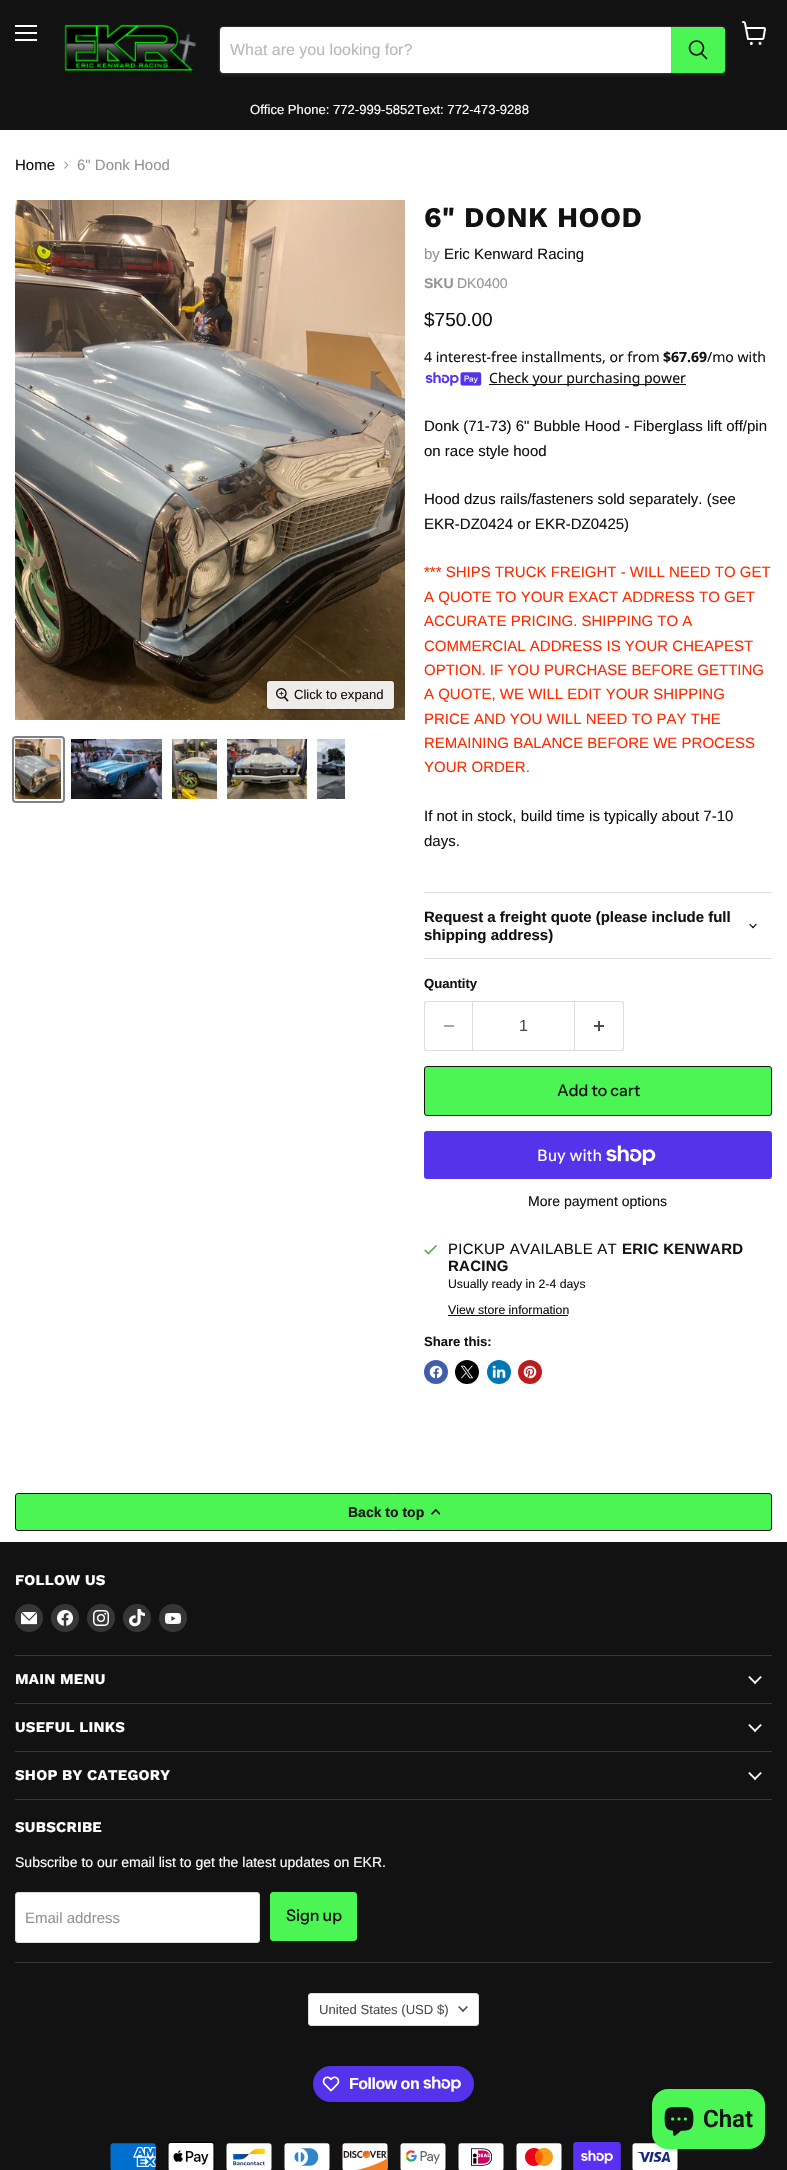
void draw(SkCanvas* c) {
SkPaint p;
p.setAntiAlias(true);
auto F=[&](const char* family, int weight, float size, bool italic = false){SkFontStyle style(weight, SkFontStyle::kNormal_Width,italic ? SkFontStyle::kItalic_Slant : SkFontStyle::kUpright_Slant);SkFont result(fontMgr->matchFamilyStyle(family, style), size);result.setSubpixel(true);return result;};
auto T=[&](const char* s, float x, float y, const SkFont& font){c->drawString(s, x, y, font, p);};
auto L=[&](const char* s, float x, float y, const SkFont& font, const SkPaint& ink, float letter, float word){std::vector<SkGlyphID> glyphs(font.countText(s, strlen(s), SkTextEncoding::kUTF8));std::vector<float> xs(glyphs.size());font.textToGlyphs(s, strlen(s), SkTextEncoding::kUTF8, glyphs);font.getXPos(glyphs, xs, x);float extra = 0;for (size_t i = 0; i < glyphs.size(); i++) {xs[i] += extra;extra += letter + word * (glyphs[i] == font.unicharToGlyph(' '));}c->drawTextBlob(SkTextBlob::MakeFromPosHGlyphs(glyphs, xs, y, font), 0, 0, ink);};
auto R=[&](float x, float y, float w, float h){c->drawRect(SkRect::MakeXYWH(x, y, w, h), p);};
auto Q=[&](float x, float y, float w, float h, float radius){c->drawRoundRect(SkRect::MakeXYWH(x, y, w, h), radius, radius, p);};
auto I=[&](const char* path, float x, float y, float w, float h){auto image = SkImages::DeferredFromEncodedData(SkData::MakeFromFileName(path));c->drawImageRect(image, SkRect::MakeXYWH(x, y, w, h), SkSamplingOptions());};
auto P=[&](const char* data, bool evenOdd = false){SkPath result = *SkParsePath::FromSVGString(data);if (evenOdd) result.setFillType(SkPathFillType::kEvenOdd);return result;};
c->clear(0xffffffff);
p.setColor(0xff121212);
R(0,0,787,130);
p.setColor(0xffffffff);
R(15,25,22,2);
R(15,32,22,2);
R(15,39,22,2);
I("1.png",742,21,24,24);
I("2.png",64,24,133,49);
p.setColor(0x1c808080);
p.setMaskFilter(SkMaskFilter::MakeBlur(kNormal_SkBlurStyle, 1.5));
c->drawRoundRect(SkRect::MakeXYWH(219,28,507,48),4,4,p);
p.setMaskFilter(nullptr);
p.setStroke(true);
p.setStrokeWidth(1);
p.setColor(0x33808080);
c->drawRoundRect(SkRect::MakeXYWH(219.5,26.5,506,47),3.5,3.5,p);
p.setStroke(false);
p.setColor(0xffffffff);
c->drawPath(P("M223 27h448v46h-448c-1.5 0-3-1.5-3-3v-40c0-1.5 1.5-3 3-3z"),p);
auto f1 = F("Liberation Sans",400,16);
p.setColor(0xffb8b8b8);
T("What are you looking for?",230,55,f1);
p.setColor(0xff4af554);
c->drawPath(P("M671.5 27.5h50.5c1.5 0 2.5 1 2.5 2.5v40c0 1.5-1 2.5-2.5 2.5h-50.5z"),p);
p.setStroke(true);
c->drawPath(P("M671.5 27.5h50.5c1.5 0 2.5 1 2.5 2.5v40c0 1.5-1 2.5-2.5 2.5h-50.5z"),p);
p.setStrokeWidth(1.7);
p.setStrokeCap(SkPaint::kRound_Cap);
p.setColor(0xff121212);
c->drawPath(P("M706.5 58.5l-5-5"),p);
p.setStrokeCap(SkPaint::kButt_Cap);
c->drawCircle(696.5,48,7,p);
auto f2 = F("Liberation Sans",400,13.1);
p.setStroke(false);
p.setColor(0xffffffff);
T("Office Phone: 772-999-5852Text: 772-473-9288",250,114,f2);
auto f3 = F("Liberation Sans",400,15);
p.setColor(0xff121212);
T("Home",15,170,f3);
I("3.png",64,161,5,8);
p.setColor(0xff949494);
T("6\" Donk Hood",77,170,f3);
I("4.png",15,200,390,520);
p.setStroke(true);
p.setStrokeWidth(1);
p.setColor(0x26000000);
c->drawRoundRect(SkRect::MakeXYWH(266.5,680.5,128,29),3.5,3.5,p);
p.setStroke(false);
p.setColor(0xe6ffffff);
Q(267,681,127,28,3);
I("5.png",276,688,13,14);
p.setColor(0xff121212);
T("Click to expand",294,699,f2);
p.setStroke(true);
p.setStrokeWidth(2);
p.setColor(0xff818181);
c->drawRoundRect(SkRect::MakeXYWH(13,737,51,65),3,3,p);
I("6.png",15,739,46,60);
I("7.png",71,739,91,60);
I("8.png",172,739,45,60);
I("9.png",227,739,80,60);
I("10.png",317,739,28,60);
auto f4 = F("Work Sans",700,28.5);
p.setStroke(false);
p.setColor(0xff121212);
L("6\" DONK HOOD",424,227,f4,p,.5,0);
p.setColor(0xff949494);
T("by",424,259,f3);
p.setColor(0xff121212);
T("Eric Kenward Racing",444,259,f3);
auto f5 = F("Liberation Sans",700,14);
p.setColor(0xff949494);
T("SKU",424,288,f5);
auto f6 = F("Liberation Sans",400,14);
T("DK0400",457,288,f6);
auto f7 = F("Liberation Sans",400,19);
p.setColor(0xff121212);
T("$750.00",424,326,f7);
auto f8 = F("Noto Sans",400,14.05);
T("4 interest-free installments, or from",424,362,f8);
auto f9 = F("Noto Sans",700,14.05);
T("$67.69",663,362,f9);
T("/mo with",707,362,f8);
I("11.png",425,372,57,14);
R(489,384,197,1);
T("Check your purchasing power",489,383,f8);
T("Donk (71-73) 6\" Bubble Hood - Fiberglass lift off/pin",424,431,f3);
T("on race style hood",424,456,f3);
T("Hood dzus rails/fasteners sold separately. (see",424,504,f3);
T("EKR-DZ0424 or EKR-DZ0425)",424,529,f3);
p.setColor(0xffff2a00);
T("*** SHIPS TRUCK FREIGHT - WILL NEED TO GET",424,577,f3);
T("A QUOTE TO YOUR EXACT ADDRESS TO GET",424,602,f3);
T("ACCURATE PRICING. SHIPPING TO A",424,626,f3);
T("COMMERCIAL ADDRESS IS YOUR CHEAPEST",424,651,f3);
T("OPTION. IF YOU PURCHASE BEFORE GETTING",424,675,f3);
T("A QUOTE, WE WILL EDIT YOUR SHIPPING",424,699,f3);
T("PRICE AND YOU WILL NEED TO PAY THE",424,724,f3);
T("REMAINING BALANCE BEFORE WE PROCESS",424,748,f3);
T("YOUR ORDER.",424,772,f3);
p.setColor(0xff121212);
T("If not in stock, build time is typically about 7-10",424,821,f3);
T("days.",424,846,f3);
p.setColor(0xffdddddd);
R(424,892,348,1);
R(424,958,348,1);
auto f10 = F("Liberation Sans",700,15);
p.setColor(0xff121212);
T("Request a freight quote (please include full",424,922,f10);
T("shipping address)",424,940,f10);
I("12.png",749,923,8,6);
auto f11 = F("Liberation Sans",700,13.1);
T("Quantity",424,988,f11);
p.setColor(0xffdddddd);
c->drawPath(P("M427 1001h45v50h-45c-2 0-3-1-3-3v-44c0-2 1-3 3-3zm0 1h45v48h-45c-1 0-2-1-2-2v-44c0-1 1-2 2-2z",true),p);
p.setColor(0xffa6a6a6);
R(444,1025,10,2);
p.setStroke(true);
p.setStrokeWidth(1);
p.setColor(0xffdddddd);
c->drawRect(SkRect::MakeXYWH(472.5,1001.5,102,49),p);
p.setStroke(false);
p.setColor(0xff4d4d4d);
T("1",519,1031,f1);
p.setColor(0xffdddddd);
c->drawPath(P("M575 1001h46c2 0 3 1 3 3v44c0 2-1 3-3 3h-46zm0 1h46c1 0 2 1 2 2v44c0 1-1 2-2 2h-46z",true),p);
I("13.png",594,1021,10,10);
p.setColor(0xff4af554);
c->drawRoundRect(SkRect::MakeXYWH(424.5,1066.5,347,49),2.5,2.5,p);
p.setStroke(true);
p.setColor(0xff121212);
c->drawRoundRect(SkRect::MakeXYWH(424.5,1066.5,347,49),2.5,2.5,p);
auto f12 = F("Instrument Sans",500,16);
p.setStroke(false);
T("Add to cart",557,1096,f12);
p.setColor(0xff5433eb);
Q(424,1131,348,48,3);
auto f13 = F("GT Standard",400,16);
p.setColor(0xffffffff);
T("Buy with",537,1161,f13);
I("14.png",606,1145,50,20);
auto f14 = F("Liberation Sans",400,14.05);
p.setColor(0xff121212);
T("More payment options",528,1206,f14);
I("15.png",424,1245,13,10);
L("PICKUP AVAILABLE AT",448,1254,f3,p,.25,0);
L("ERIC KENWARD",622,1254,f10,p,.25,0);
L("RACING",448,1271,f10,p,.25,0);
auto f15 = F("Liberation Sans",400,12.25);
T("Usually ready in 2-4 days",448,1288,f15);
T("View store information",448,1314,f15);
R(448,1315,120,1);
T("Share this:",424,1346,f11);
p.setColor(0xff425dab);
c->drawCircle(436,1372,12,p);
I("16.png",429,1365,14,14);
p.setColor(0xff000000);
c->drawCircle(467,1372,12,p);
I("17.png",460,1365,14,14);
p.setColor(0xff0077b5);
c->drawCircle(499,1372,12,p);
I("18.png",492,1365,14,13);
p.setColor(0xffbd1c1c);
c->drawCircle(530,1372,12,p);
I("19.png",523,1365,14,14);
p.setColor(0xff4af554);
c->drawRoundRect(SkRect::MakeXYWH(15.5,1493.5,756,37),2.5,2.5,p);
p.setStroke(true);
p.setColor(0xff121212);
c->drawRoundRect(SkRect::MakeXYWH(15.5,1493.5,756,37),2.5,2.5,p);
p.setStroke(false);
T("Back to top",348,1517,f5);
I("20.png",431,1508,9,7);
R(0,1542,787,628);
p.setColor(0xff363636);
R(15,1655,757,1);
auto f16 = F("Work Sans",700,14.9);
p.setColor(0xffffffff);
L("FOLLOW US",15,1585,f16,p,.25,0);
p.setColor(0xff363636);
c->drawCircle(29,1618,14,p);
I("21.png",21,1612,16,13);
c->drawCircle(65,1618,14,p);
I("22.png",57,1610,16,16);
c->drawCircle(101,1618,14,p);
I("23.png",93,1610,16,16);
c->drawCircle(137,1618,14,p);
I("24.png",129,1609,16,18);
c->drawCircle(173,1618,14,p);
I("25.png",165,1613,16,11);
R(15,1703,757,1);
p.setColor(0xffffffff);
L("MAIN MENU",15,1684,f16,p,.25,0);
I("26.png",748,1676,14,8);
p.setColor(0xff363636);
R(15,1751,757,1);
p.setColor(0xffffffff);
L("USEFUL LINKS",15,1732,f16,p,.25,0);
I("26.png",748,1724,14,8);
p.setColor(0xff363636);
R(15,1799,757,1);
p.setColor(0xffffffff);
L("SHOP BY CATEGORY",15,1780,f16,p,.25,0);
I("26.png",748,1772,14,8);
p.setColor(0xff363636);
R(15,1962,757,1);
p.setColor(0xffffffff);
L("SUBSCRIBE",15,1832,f16,p,.25,0);
T("Subscribe to our email list to get the latest updates on EKR.",15,1867,f14);
c->drawRoundRect(SkRect::MakeXYWH(15.5,1892.5,244,50),2.5,2.5,p);
p.setStroke(true);
p.setColor(0xffdddddd);
c->drawRoundRect(SkRect::MakeXYWH(15.5,1892.5,244,50),2.5,2.5,p);
p.setStroke(false);
p.setColor(0xff949494);
T("Email address",25,1923,f3);
p.setColor(0xff4af554);
c->drawRoundRect(SkRect::MakeXYWH(270.5,1892.5,86,48),2.5,2.5,p);
p.setStroke(true);
c->drawRoundRect(SkRect::MakeXYWH(270.5,1892.5,86,48),2.5,2.5,p);
p.setStroke(false);
p.setColor(0xff121212);
T("Sign up",286,1921,f12);
p.setColor(0xffffffff);
c->drawRoundRect(SkRect::MakeXYWH(308.5,1993.5,170,32),2.5,2.5,p);
p.setStroke(true);
p.setColor(0xffdddddd);
c->drawRoundRect(SkRect::MakeXYWH(308.5,1993.5,170,32),2.5,2.5,p);
p.setStroke(false);
p.setColor(0xff4d4d4d);
T("United States (USD $)",319,2014,f2);
I("27.png",458,2006,10,6);
p.setColor(0xff5433eb);
Q(313,2066,161,36,18);
I("28.png",322,2076,18,16);
auto f17 = F("Liberation Sans",700,16);
p.setColor(0xffffffff);
L("Follow on",349,2089,f17,p,-.5,0);
I("29.png",423,2076,38,16);
I("30.png",110,2143,46,27);
I("31.png",167,2142,48,28);
I("32.png",226,2143,46,27);
I("33.png",284,2143,46,27);
I("34.png",342,2143,46,27);
I("35.png",400,2143,46,27);
I("36.png",458,2143,46,27);
I("37.png",516,2143,46,27);
I("38.png",573,2142,48,28);
I("39.png",632,2143,46,27);
p.setColor(0x26000000);
p.setMaskFilter(SkMaskFilter::MakeBlur(kNormal_SkBlurStyle, 2.5));
c->drawRoundRect(SkRect::MakeXYWH(652,2089,113,60),16,16,p);
p.setMaskFilter(nullptr);
p.setColor(0xff4af554);
Q(652,2089,113,60,16);
I("40.png",664,2107,30,29);
auto f18 = F("Roboto",600,24);
p.setColor(0xff121212);
T("Chat",703,2127,f18);
}
